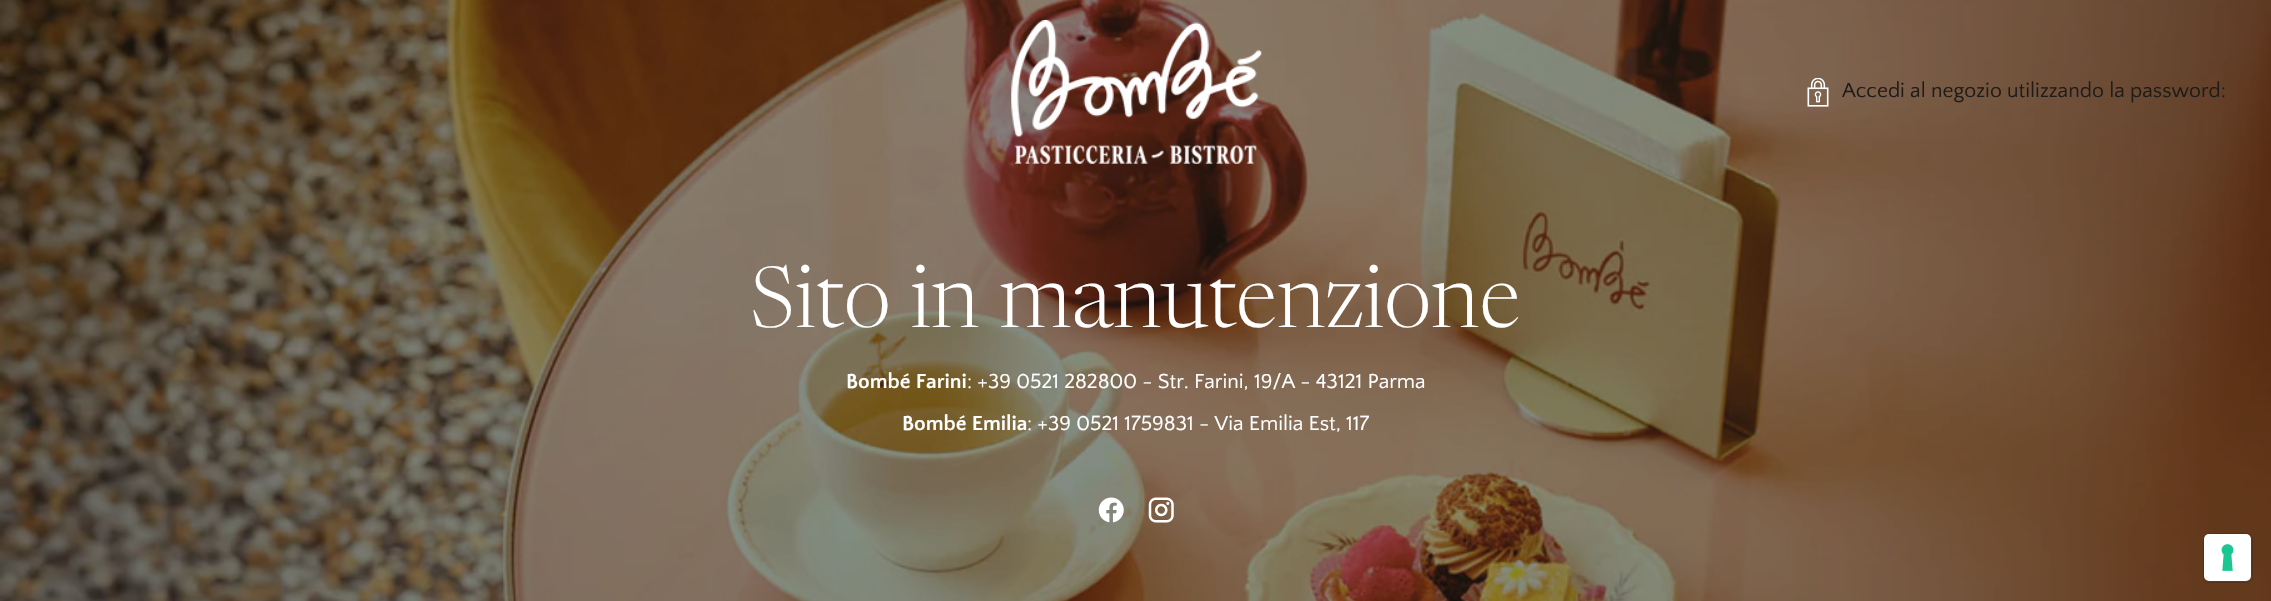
void draw(SkCanvas* c) {
SkPaint p;
p.setAntiAlias(true);
auto F=[&](const char* family, int weight, float size, bool italic = false){SkFontStyle style(weight, SkFontStyle::kNormal_Width,italic ? SkFontStyle::kItalic_Slant : SkFontStyle::kUpright_Slant);SkFont result(fontMgr->matchFamilyStyle(family, style), size);result.setSubpixel(true);return result;};
auto T=[&](const char* s, float x, float y, const SkFont& font){c->drawString(s, x, y, font, p);};
auto Q=[&](float x, float y, float w, float h, float radius){c->drawRoundRect(SkRect::MakeXYWH(x, y, w, h), radius, radius, p);};
auto I=[&](const char* path, float x, float y, float w, float h){auto image = SkImages::DeferredFromEncodedData(SkData::MakeFromFileName(path));c->drawImageRect(image, SkRect::MakeXYWH(x, y, w, h), SkSamplingOptions());};
c->clear(0xffffffff);
I("3.png",0,0,2271,601);
I("1.png",1011,20,251,144);
I("2.png",1807,78,22,29);
auto f1 = F("Quattrocento Sans",400,21.25);
p.setColor(0xff1e1b18);
T("Accedi al negozio utilizzando la password:",1842,97,f1);
auto f2 = F("Newsreader",300,84.5);
p.setColor(0xffffffff);
T("Sito in manutenzione",750,327,f2);
auto f3 = F("Quattrocento Sans",700,21.25);
T("Bombé Farini",846,388,f3);
T(": +39 0521 282800 - Str. Farini, 19/A - 43121 Parma",967,388,f1);
T("Bombé Emilia",902,430,f3);
T(": +39 0521 1759831 - Via Emilia Est, 117",1027,430,f1);
I("4.png",1098,497,26,26);
I("5.png",1148,497,26,26);
p.setStroke(true);
p.setStrokeWidth(1);
p.setColor(0xff543018);
c->drawRoundRect(SkRect::MakeXYWH(2203.5,533.5,49,49),5.5,5.5,p);
p.setStroke(false);
p.setColor(0xffffffff);
Q(2204,534,47,47,5);
I("6.png",2221,544,13,27);
}
